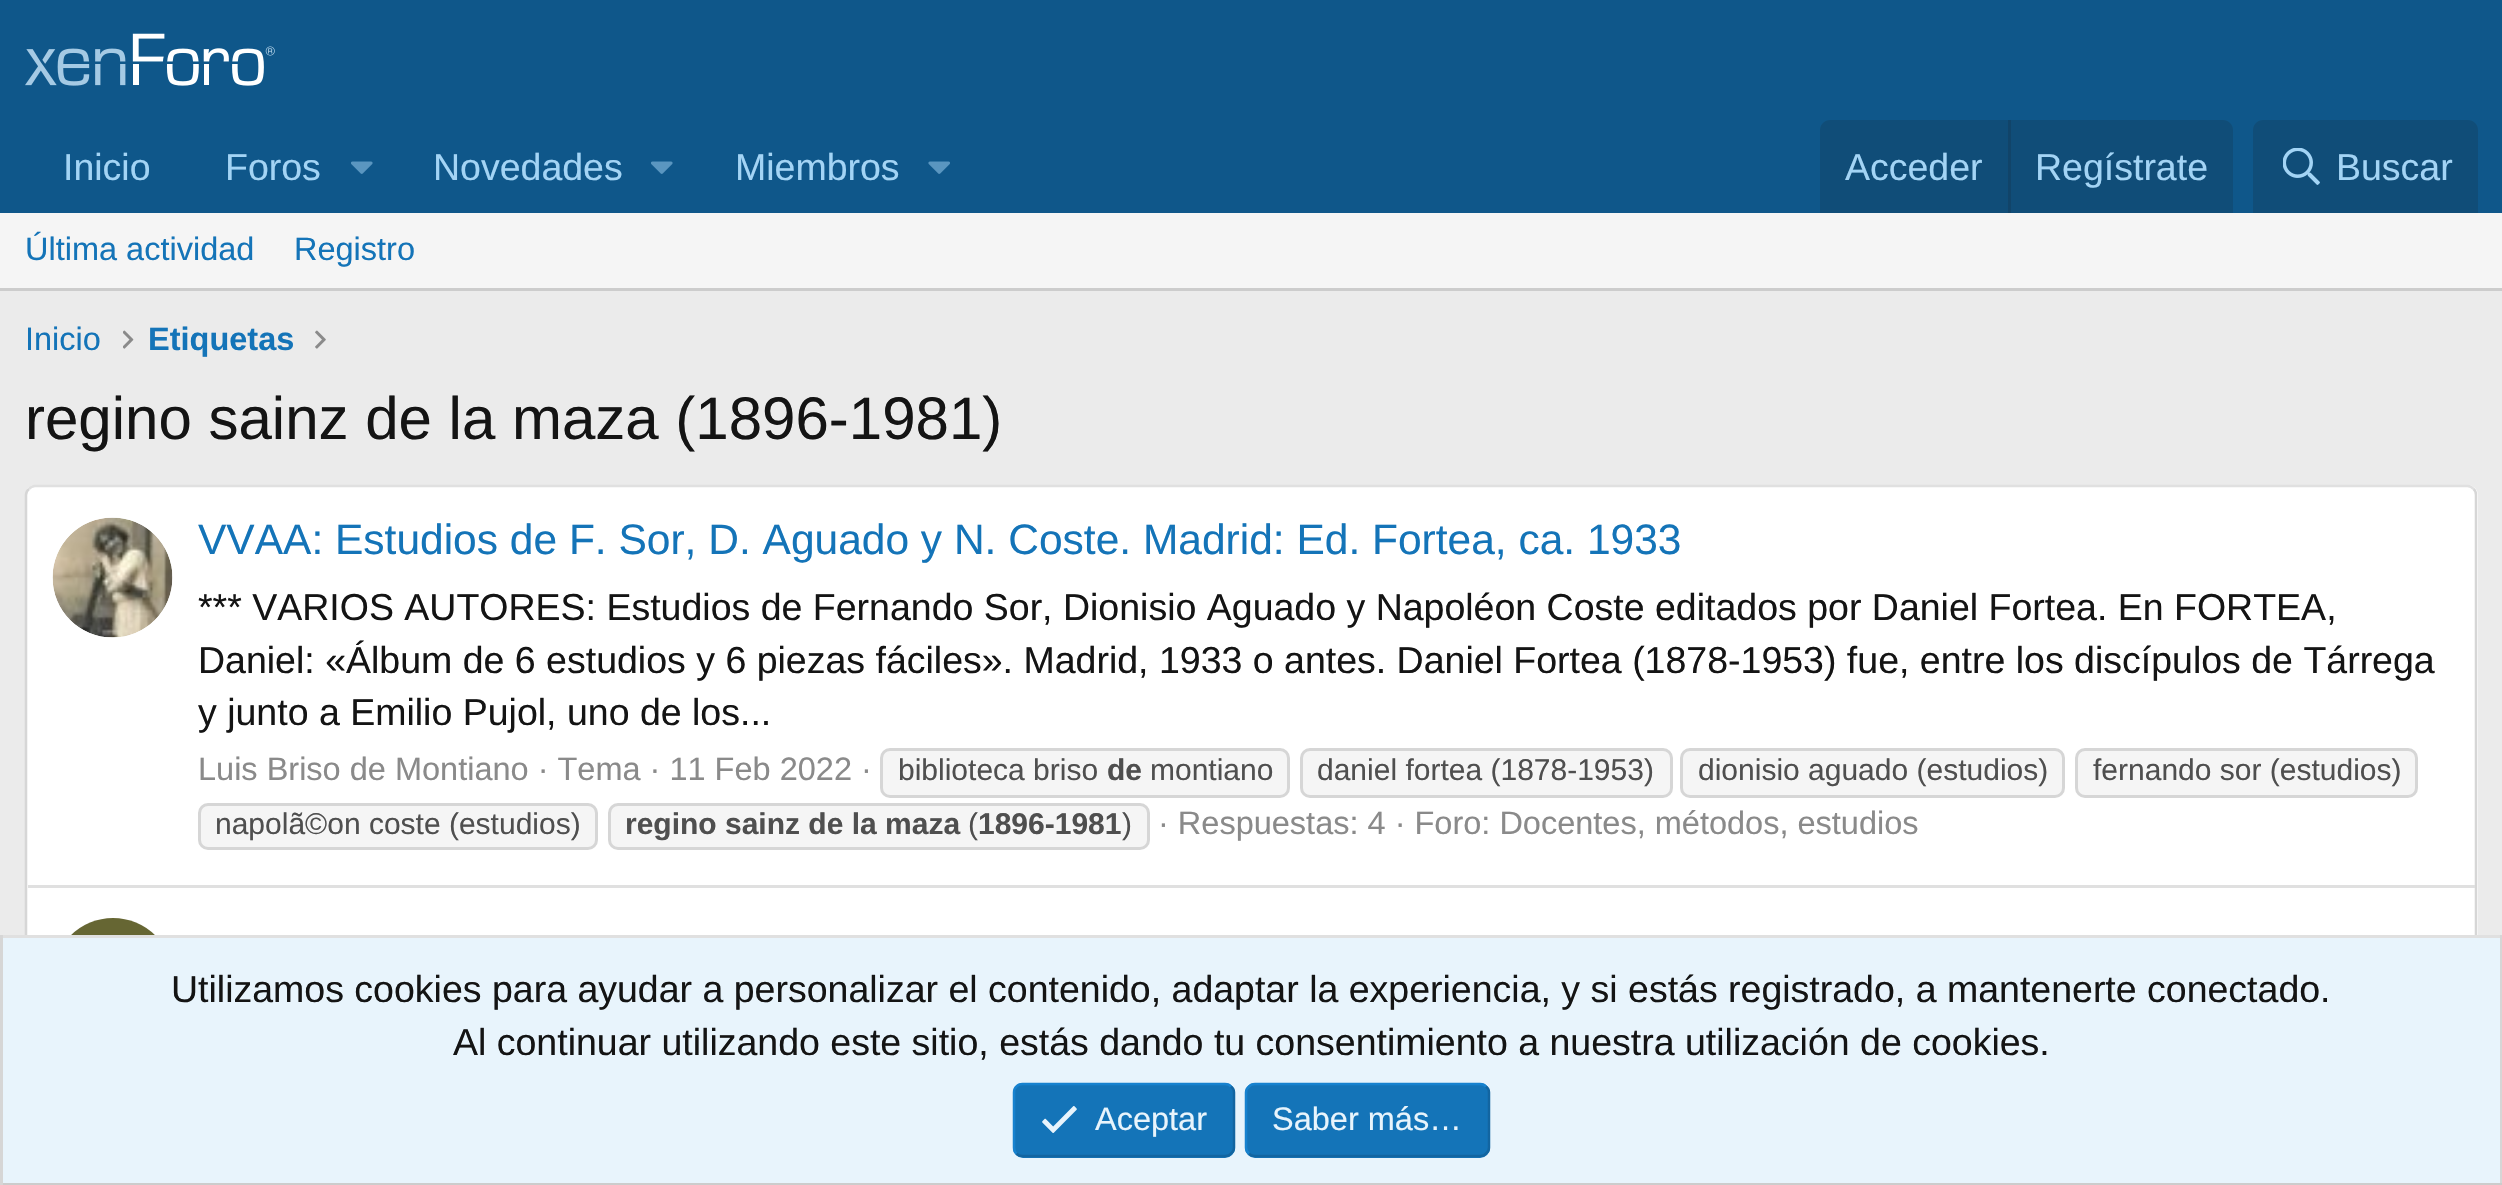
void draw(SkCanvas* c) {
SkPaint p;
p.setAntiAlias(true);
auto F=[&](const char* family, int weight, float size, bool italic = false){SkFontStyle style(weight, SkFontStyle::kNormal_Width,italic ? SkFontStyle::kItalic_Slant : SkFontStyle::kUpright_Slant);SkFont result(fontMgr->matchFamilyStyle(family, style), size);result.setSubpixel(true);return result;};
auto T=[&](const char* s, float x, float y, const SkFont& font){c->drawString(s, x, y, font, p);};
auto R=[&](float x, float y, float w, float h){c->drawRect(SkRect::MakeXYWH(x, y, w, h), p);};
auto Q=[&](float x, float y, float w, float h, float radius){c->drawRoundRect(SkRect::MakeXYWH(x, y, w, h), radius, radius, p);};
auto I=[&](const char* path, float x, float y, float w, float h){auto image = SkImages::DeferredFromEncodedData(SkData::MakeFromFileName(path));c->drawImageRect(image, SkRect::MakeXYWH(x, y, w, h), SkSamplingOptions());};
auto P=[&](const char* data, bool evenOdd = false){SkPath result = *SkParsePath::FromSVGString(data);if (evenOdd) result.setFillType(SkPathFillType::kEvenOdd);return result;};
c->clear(0xffebebeb);
p.setColor(0xff0f578a);
R(0,0,2502,213);
I("1.png",25,33,250,53);
auto f1 = F("Liberation Sans",400,37.5);
p.setColor(0xffa3d4f5);
T("Inicio",63,180,f1);
T("Foros",225,180,f1);
I("2.png",351,161,22,13);
T("Novedades",433,180,f1);
I("2.png",651,161,22,13);
T("Miembros",735,180,f1);
I("3.png",928,161,22,13);
p.setColor(0xff104d78);
c->drawPath(P("M1830 120h393c5.5 0 10 4.5 10 10v83h-413v-83c0-5.5 4.5-10 10-10z"),p);
p.setColor(0xffa3d4f5);
T("Acceder",1845,180,f1);
p.setColor(0xff114469);
R(2008,120,3,93);
p.setColor(0xffa3d4f5);
T("Regístrate",2035,180,f1);
p.setColor(0xff104d78);
c->drawPath(P("M2263 120h205c5.5 0 10 4.5 10 10v83h-225v-83c0-5.5 4.5-10 10-10z"),p);
I("4.png",2283,148,37,37);
p.setColor(0xffa3d4f5);
T("Buscar",2336,180,f1);
p.setColor(0xfff5f5f5);
R(0,213,2502,75);
p.setColor(0xffcccccc);
R(0,288,2502,3);
auto f2 = F("Liberation Sans",400,32.5);
p.setColor(0xff1474b8);
T("Última actividad",25,260,f2);
T("Registro",294,260,f2);
T("Inicio",25,350,f2);
I("5.png",123,330,11,19);
auto f3 = F("Liberation Sans",700,32.5);
T("Etiquetas",148,350,f3);
I("6.png",315,330,11,19);
auto f4 = F("Liberation Sans",400,60);
p.setColor(0xff141414);
T("regino sainz de la maza (1896-1981)",25,439,f4);
p.setColor(0xffffffff);
Q(25,485,2453,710,10);
p.setStroke(true);
p.setStrokeWidth(2.5);
p.setColor(0xffe0e0e0);
c->drawPath(P("M29 489c1.5-2 3.5-3 6-3h2432.5c2.5 0 4.5 1 6 3"),p);
p.setColor(0xffd6d6d6);
c->drawPath(P("M2473.5 489c2 1.5 2.5 3.5 2.5 6v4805c0 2.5-.5 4.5-2.5 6"),p);
c->drawPath(P("M29 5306c-2-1.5-3-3.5-3-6v-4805c0-2.5 1-4.5 3-6"),p);
I("7.png",52,517,121,121);
auto f5 = F("Liberation Sans",400,42.5);
p.setStroke(false);
p.setColor(0xff1474b8);
T("VVAA: Estudios de F. Sor, D. Aguado y N. Coste. Madrid: Ed. Fortea, ca. 1933",198,554,f5);
p.setColor(0xff141414);
T("*** VARIOS AUTORES: Estudios de Fernando Sor, Dionisio Aguado y Napoléon Coste editados por Daniel Fortea. En FORTEA,",198,620,f1);
T("Daniel: «Álbum de 6 estudios y 6 piezas fáciles». Madrid, 1933 o antes. Daniel Fortea (1878-1953) fue, entre los discípulos de Tárrega",198,673,f1);
T("y junto a Emilio Pujol, uno de los...",198,725,f1);
p.setColor(0xff8a8a8a);
T("Luis Briso de Montiano · Tema · 11 Feb 2022 ·",198,780,f2);
p.setColor(0xfff5f5f5);
c->drawRoundRect(SkRect::MakeXYWH(881.5,749.5,407,47),8.5,8.5,p);
p.setStroke(true);
p.setStrokeWidth(3);
p.setColor(0xffd6d6d6);
c->drawRoundRect(SkRect::MakeXYWH(881.5,749.5,407,47),8.5,8.5,p);
auto f6 = F("Liberation Sans",400,30);
p.setStroke(false);
p.setColor(0xff4f4f4f);
T("biblioteca briso",898,780,f6);
auto f7 = F("Liberation Sans",700,30);
T("de",1107,780,f7);
T("montiano",1150,780,f6);
p.setColor(0xfff5f5f5);
c->drawRoundRect(SkRect::MakeXYWH(1301.5,749.5,370,47),8.5,8.5,p);
p.setStroke(true);
p.setColor(0xffd6d6d6);
c->drawRoundRect(SkRect::MakeXYWH(1301.5,749.5,370,47),8.5,8.5,p);
p.setStroke(false);
p.setColor(0xff4f4f4f);
T("daniel fortea (1878-1953)",1317,780,f6);
p.setColor(0xfff5f5f5);
c->drawRoundRect(SkRect::MakeXYWH(1681.5,749.5,382,47),8.5,8.5,p);
p.setStroke(true);
p.setColor(0xffd6d6d6);
c->drawRoundRect(SkRect::MakeXYWH(1681.5,749.5,382,47),8.5,8.5,p);
p.setStroke(false);
p.setColor(0xff4f4f4f);
T("dionisio aguado (estudios)",1698,780,f6);
p.setColor(0xfff5f5f5);
c->drawRoundRect(SkRect::MakeXYWH(2076.5,749.5,340,47),8.5,8.5,p);
p.setStroke(true);
p.setColor(0xffd6d6d6);
c->drawRoundRect(SkRect::MakeXYWH(2076.5,749.5,340,47),8.5,8.5,p);
p.setStroke(false);
p.setColor(0xff4f4f4f);
T("fernando sor (estudios)",2093,780,f6);
p.setColor(0xfff5f5f5);
c->drawRoundRect(SkRect::MakeXYWH(199.5,804.5,397,44),8.5,8.5,p);
p.setStroke(true);
p.setColor(0xffd6d6d6);
c->drawRoundRect(SkRect::MakeXYWH(199.5,804.5,397,44),8.5,8.5,p);
p.setStroke(false);
p.setColor(0xff4f4f4f);
T("napolã©on coste (estudios)",215,834,f6);
p.setColor(0xfff5f5f5);
c->drawRoundRect(SkRect::MakeXYWH(609.5,804.5,539,44),8.5,8.5,p);
p.setStroke(true);
p.setColor(0xffd6d6d6);
c->drawRoundRect(SkRect::MakeXYWH(609.5,804.5,539,44),8.5,8.5,p);
p.setStroke(false);
p.setColor(0xff4f4f4f);
T("regino sainz de la maza",625,834,f7);
T("(",968,834,f6);
T("1896-1981",978,834,f7);
T(")",1122,834,f6);
p.setColor(0xff8a8a8a);
T("· Respuestas: 4 · Foro: Docentes, métodos, estudios",1158,834,f2);
p.setColor(0xffe0e0e0);
R(28,885,2447,3);
p.setColor(0xff666633);
c->drawCircle(113,978,60,p);
p.setColor(0xffe8f4fc);
R(3,938,2497,245);
p.setColor(0xffe0e0e0);
R(0,935,2502,3);
p.setColor(0xffd6d6d6);
R(2500,935,2,250);
p.setColor(0xffcccccc);
R(0,1183,2502,2);
p.setColor(0xffd6d6d6);
R(0,935,3,250);
p.setColor(0xff141414);
T("Utilizamos cookies para ayudar a personalizar el contenido, adaptar la experiencia, y si estás registrado, a mantenerte conectado.",171,1002,f1);
T("Al continuar utilizando este sitio, estás dando tu consentimiento a nuestra utilización de cookies.",453,1055,f1);
p.setColor(0xff1474b8);
Q(1013,1083,222,75,10);
p.setStroke(true);
p.setStrokeWidth(2.5);
p.setColor(0xff1265a1);
c->drawPath(P("M1231 1086.5c2 1.5 3 3.5 3 6v55c0 2.5-1 4.5-3 6c-1.5 2-3.5 2.5-6 2.5h-202.5c-2.5 0-4.5-.5-6-2.5"),p);
p.setColor(0xff1782cf);
c->drawPath(P("M1016.5 1153.5c-2-1.5-2.5-3.5-2.5-6v-55c0-2.5 .5-4.5 2.5-6c1.5-2 3.5-2.5 6-2.5h202.5c2.5 0 4.5 .5 6 2.5"),p);
I("8.png",1042,1106,35,27);
p.setStroke(false);
p.setColor(0xffe8f4fc);
T("Aceptar",1095,1130,f2);
p.setColor(0xff1474b8);
Q(1245,1083,245,75,10);
p.setStroke(true);
p.setColor(0xff1265a1);
c->drawPath(P("M1486 1086.5c2 1.5 3 3.5 3 6v55c0 2.5-1 4.5-3 6c-1.5 2-3.5 2.5-6 2.5h-225c-2.5 0-4.5-.5-6-2.5"),p);
p.setColor(0xff1782cf);
c->drawPath(P("M1249 1153.5c-2-1.5-3-3.5-3-6v-55c0-2.5 1-4.5 3-6c1.5-2 3.5-2.5 6-2.5h225c2.5 0 4.5 .5 6 2.5"),p);
p.setStroke(false);
p.setColor(0xffe8f4fc);
T("Saber más…",1272,1130,f2);
}
